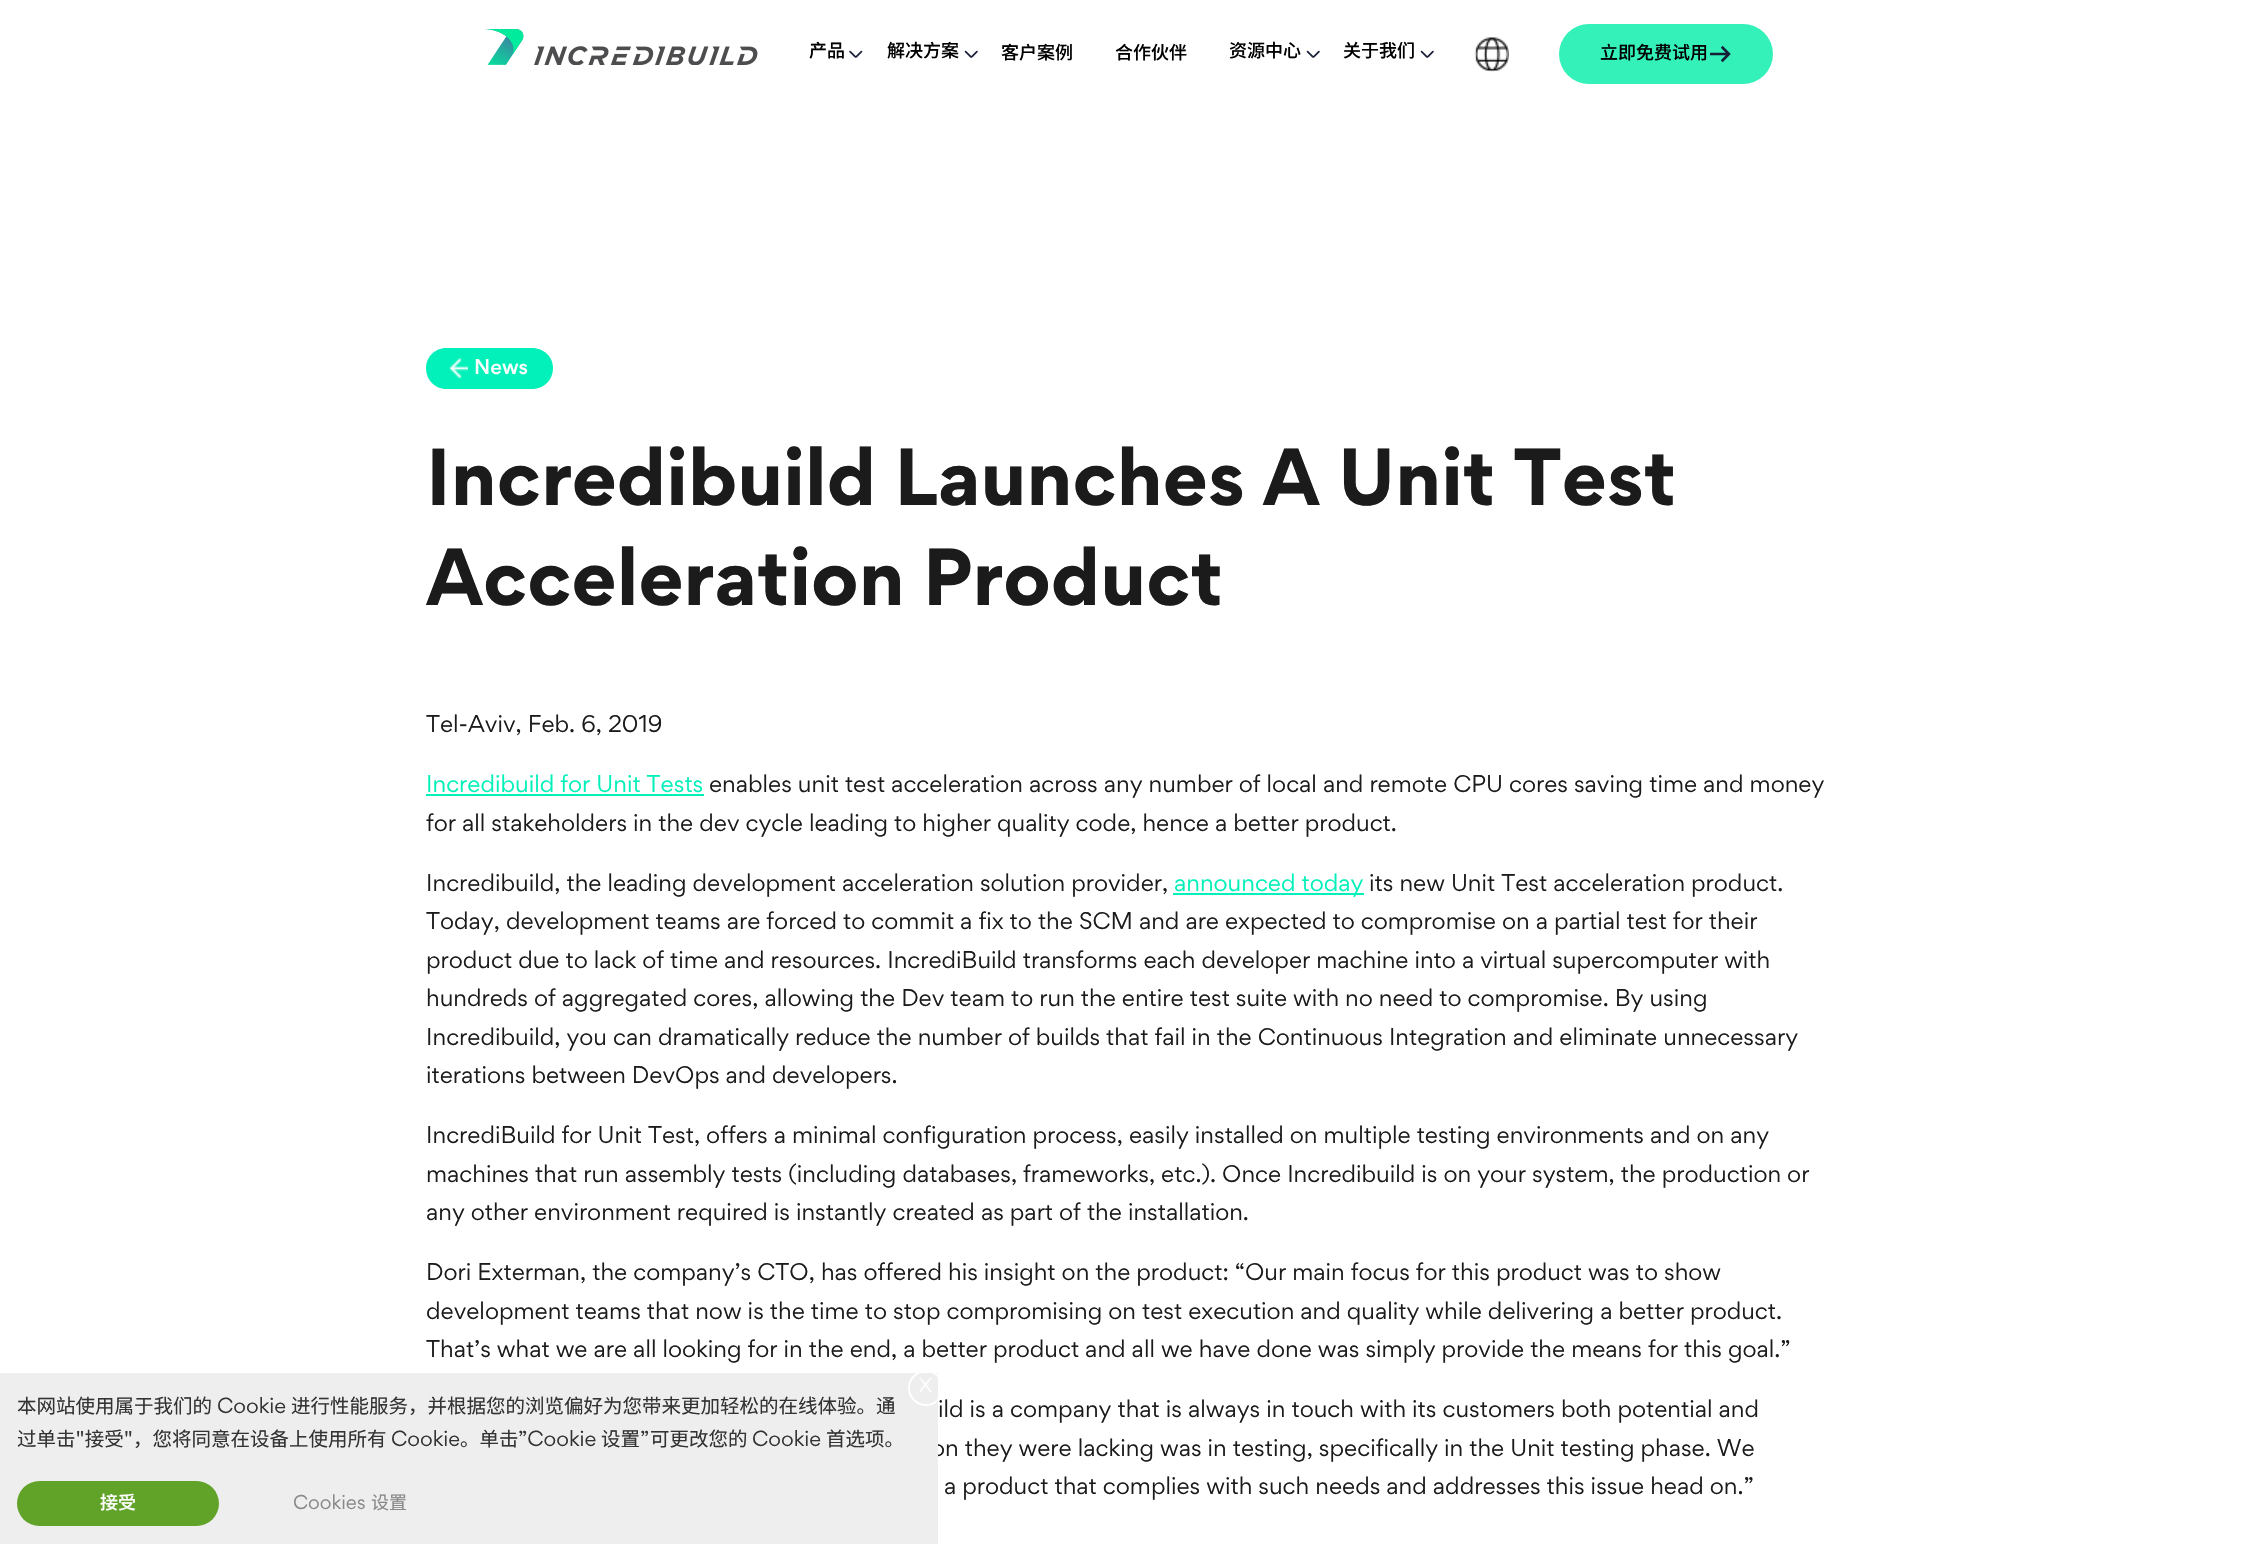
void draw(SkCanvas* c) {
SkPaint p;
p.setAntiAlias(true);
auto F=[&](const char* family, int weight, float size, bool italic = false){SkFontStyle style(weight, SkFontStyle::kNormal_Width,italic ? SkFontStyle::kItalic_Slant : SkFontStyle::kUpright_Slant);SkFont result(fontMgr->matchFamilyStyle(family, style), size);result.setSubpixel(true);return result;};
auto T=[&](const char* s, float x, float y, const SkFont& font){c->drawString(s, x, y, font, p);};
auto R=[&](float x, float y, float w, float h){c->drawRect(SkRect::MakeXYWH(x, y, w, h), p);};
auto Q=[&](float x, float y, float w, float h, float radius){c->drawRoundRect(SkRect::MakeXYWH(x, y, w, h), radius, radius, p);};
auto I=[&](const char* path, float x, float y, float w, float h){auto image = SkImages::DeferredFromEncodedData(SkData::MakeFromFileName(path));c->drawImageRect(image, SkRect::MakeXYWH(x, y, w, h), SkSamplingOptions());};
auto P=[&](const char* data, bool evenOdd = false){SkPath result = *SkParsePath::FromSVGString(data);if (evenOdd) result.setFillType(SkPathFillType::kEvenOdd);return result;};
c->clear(0xffffffff);
I("1.png",485,29,273,36);
I("2.png",849,50,14,8);
auto f1 = F("Noto Sans SC",500,18);
p.setColor(0xff000000);
T("产品",809,57,f1);
I("3.png",964,50,14,8);
T("解决方案",887,57,f1);
T("客户案例",1001,59,f1);
T("合作伙伴",1115,59,f1);
I("3.png",1306,50,14,8);
T("资源中心",1229,57,f1);
I("3.png",1420,50,14,8);
T("关于我们",1343,57,f1);
I("4.png",1474,37,35,35);
p.setColor(0xff34f1ba);
Q(1559,24,214,60,30);
p.setColor(0xff000000);
T("立即免费试用",1600,59,f1);
I("5.png",1710,45,21,18);
p.setColor(0xff02f0b9);
c->drawPath(P("M532 348h-86c-11 0-20 9-20 20c0 12 9 21 20 21h86c12 0 21-9 21-21c0-11-9-20-21-20z"),p);
I("6.png",450,358,18,20);
auto f2 = F("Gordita",500,19);
p.setColor(0xffffffff);
T("News",474,374,f2);
auto f3 = F("Gordita",700,72);
p.setColor(0xff1b1b1b);
T("Incredibuild Launches A Unit Test",426,505,f3);
T("Acceleration Product",426,605,f3);
auto f4 = F("Gordita",400,21.6);
T("Tel-Aviv, Feb. 6, 2019",426,732,f4);
p.setColor(0xff00f0b9);
T("Incredibuild for Unit Tests",426,792,f4);
R(426,794,278,2);
p.setColor(0xff1b1b1b);
T("enables unit test acceleration across any number of local and remote CPU cores saving time and money",709,792,f4);
T("for all stakeholders in the dev cycle leading to higher quality code, hence a better product.",426,831,f4);
T("Incredibuild, the leading development acceleration solution provider,",426,891,f4);
p.setColor(0xff00f0b9);
R(1173,893,191,2);
T("announced today",1174,891,f4);
p.setColor(0xff1b1b1b);
T("its new Unit Test acceleration product.",1369,891,f4);
T("Today, development teams are forced to commit a fix to the SCM and are expected to compromise on a partial test for their",426,929,f4);
T("product due to lack of time and resources. IncrediBuild transforms each developer machine into a virtual supercomputer with",426,968,f4);
T("hundreds of aggregated cores, allowing the Dev team to run the entire test suite with no need to compromise. By using",426,1006,f4);
T("Incredibuild, you can dramatically reduce the number of builds that fail in the Continuous Integration and eliminate unnecessary",426,1045,f4);
T("iterations between DevOps and developers.",426,1083,f4);
T("IncrediBuild for Unit Test, offers a minimal configuration process, easily installed on multiple testing environments and on any",426,1143,f4);
T("machines that run assembly tests (including databases, frameworks, etc.). Once Incredibuild is on your system, the production or",426,1182,f4);
T("any other environment required is instantly created as part of the installation.",426,1220,f4);
T("Dori Exterman, the company’s CTO, has offered his insight on the product: “Our main focus for this product was to show",426,1280,f4);
T("development teams that now is the time to stop compromising on test execution and quality while delivering a better product.",426,1319,f4);
T("That’s what we are all looking for in the end, a better product and all we have done was simply provide the means for this goal.”",426,1357,f4);
T("ild is a company that is always in touch with its customers both potential and",938,1417,f4);
T("on they were lacking was in testing, specifically in the Unit testing phase. We",931,1456,f4);
T("a product that complies with such needs and addresses this issue head on.”",944,1494,f4);
p.setColor(0xffeeeeee);
R(0,1373,938,171);
p.setStroke(true);
p.setStrokeWidth(2);
p.setColor(0xffffffff);
c->drawCircle(926,1388,17,p);
auto f5 = F("Gordita",400,18);
p.setStroke(false);
T("X",919,1392,f5);
auto f6 = F("Noto Sans SC",400,19.5);
p.setColor(0xff333333);
T("本网站使用属于我们的",17,1413,f6);
auto f7 = F("Gordita",400,19.5);
T("Cookie",217,1413,f7);
T("进行性能服务，并根据您的浏览偏好为您带来更加轻松的在线体验。通",291,1413,f6);
T("过单击\"接受\"，您将同意在设备上使用所有",17,1446,f6);
T("Cookie",391,1446,f7);
T("。单击",460,1446,f6);
T("”Cookie",518,1446,f7);
T("设置",601,1446,f6);
T("”",640,1446,f7);
T("可更改您的",650,1446,f6);
T("Cookie",752,1446,f7);
T("首选项。",826,1446,f6);
p.setColor(0xff61a229);
Q(17,1481,202,45,22.5);
p.setColor(0xffffffff);
T("接受",100,1509,f1);
p.setColor(0xff898888);
T("Cookies",293,1509,f5);
auto f8 = F("Noto Sans SC",400,18);
T("设置",371,1509,f8);
}
